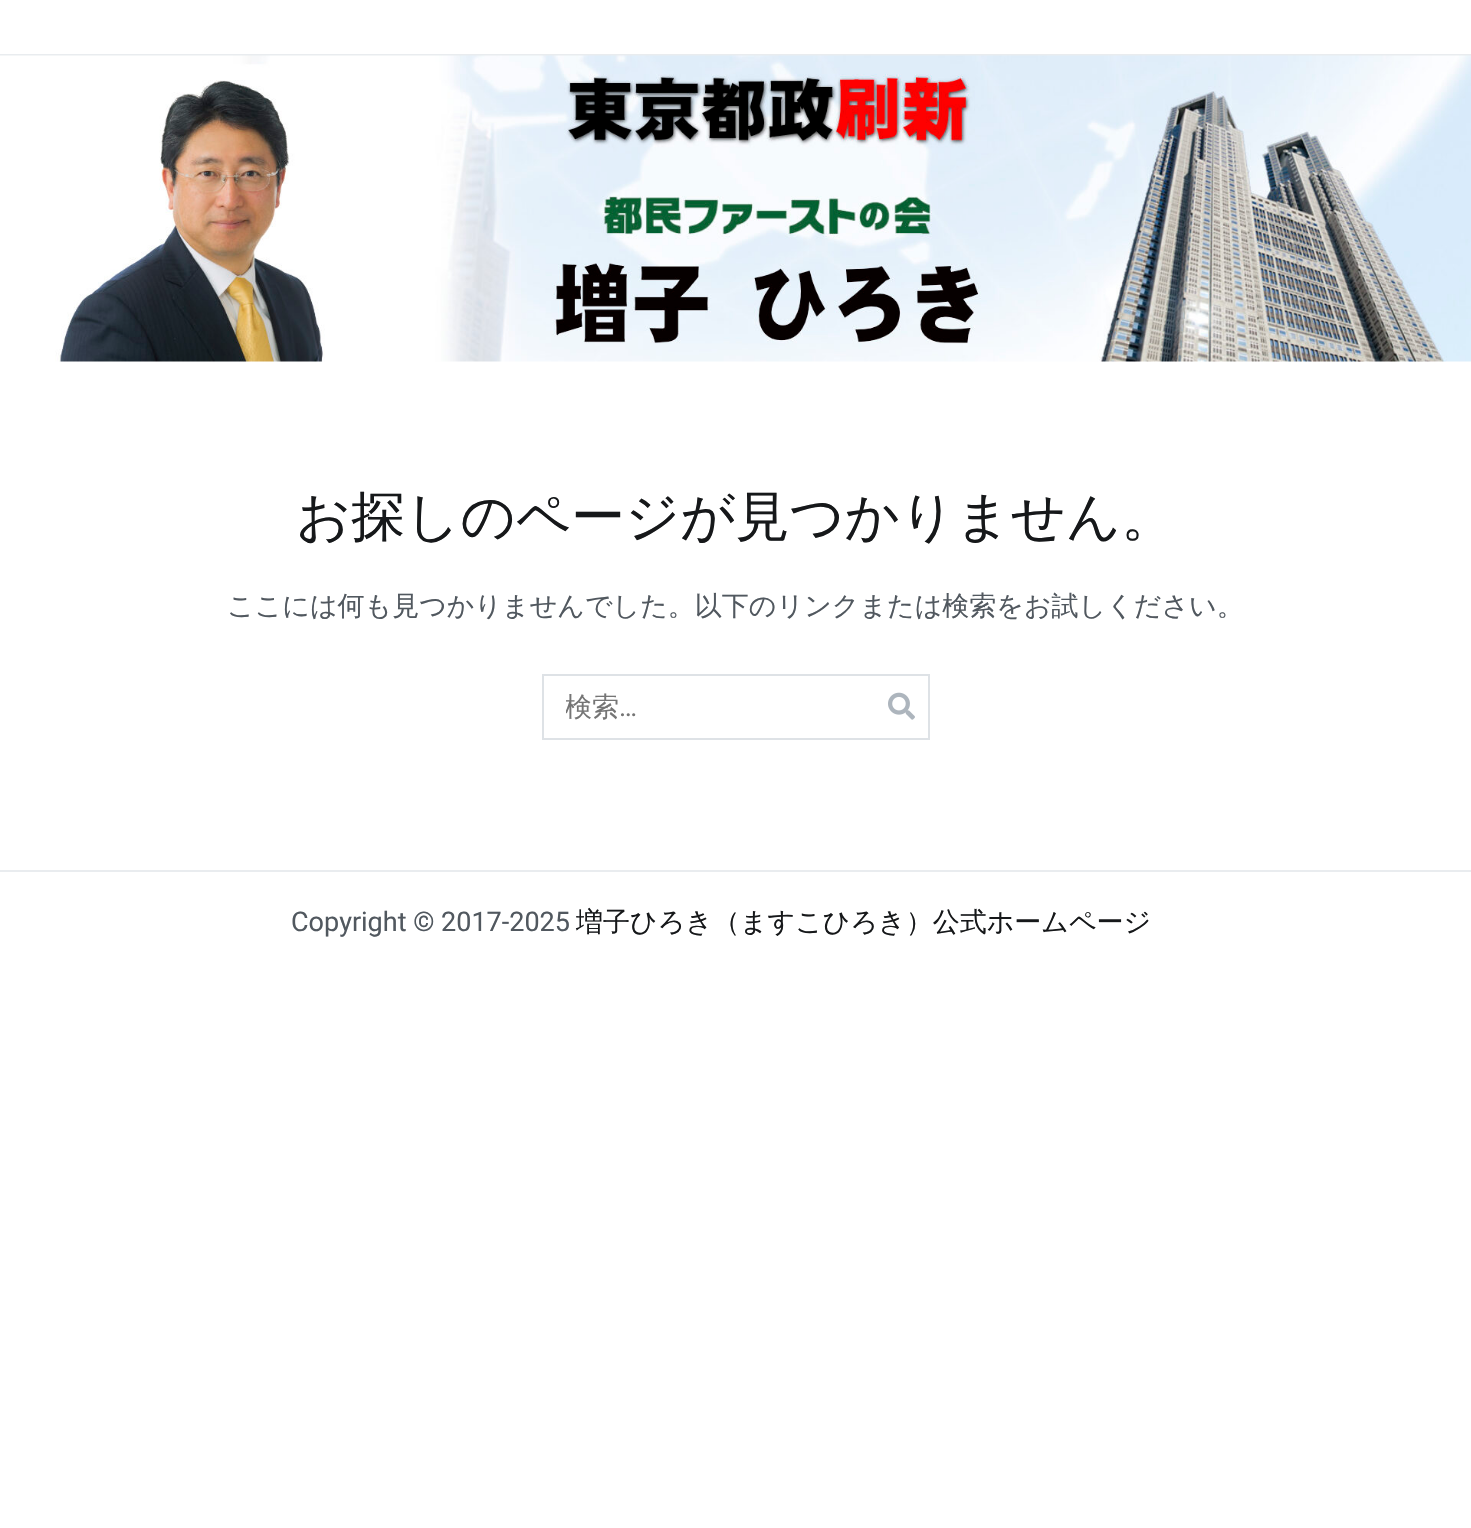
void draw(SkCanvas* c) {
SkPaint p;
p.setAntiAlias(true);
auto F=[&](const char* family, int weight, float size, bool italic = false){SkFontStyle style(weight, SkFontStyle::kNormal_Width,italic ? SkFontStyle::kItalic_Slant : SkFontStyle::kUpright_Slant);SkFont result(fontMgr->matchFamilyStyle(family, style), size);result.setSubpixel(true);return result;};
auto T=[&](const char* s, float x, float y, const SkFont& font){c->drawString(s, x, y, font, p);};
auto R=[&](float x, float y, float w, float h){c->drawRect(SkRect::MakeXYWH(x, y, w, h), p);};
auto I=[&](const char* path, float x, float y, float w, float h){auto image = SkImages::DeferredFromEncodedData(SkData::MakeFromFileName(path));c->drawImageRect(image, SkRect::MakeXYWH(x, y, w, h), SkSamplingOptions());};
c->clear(0xffffffff);
p.setColor(0xffe9ecef);
R(0,54,1471,2);
I("1.png",0,55,1471,307);
auto f1 = F("WenQuanYi Zen Hei",500,54);
p.setColor(0xff16181a);
T("お探しのページが見つかりません。",296,535,f1);
auto f2 = F("WenQuanYi Zen Hei",500,27);
p.setColor(0xff51585f);
T("ここには何も見つかりませんでした。以下のリンクまたは検索をお試しください。",227,615,f2);
p.setStroke(true);
p.setStrokeWidth(2);
p.setColor(0xffdee2e6);
c->drawRect(SkRect::MakeXYWH(543,675,386,64),p);
c->save();
c->clipRect(SkRect::MakeXYWH(566,689,336,36));
p.setStroke(false);
p.setColor(0xff757575);
T("検索",565,716,f2);
c->restore();
auto f3 = F("Roboto",400,27);
T("…",619,716,f3);
I("2.png",888,692,27,28);
p.setColor(0xffe9ecef);
R(0,870,1471,2);
p.setColor(0xff51585f);
T("Copyright © 2017-2025",291,931,f3);
p.setColor(0xff16181a);
T("増子ひろき（ますこひろき）公式ホームページ",576,931,f2);
}
